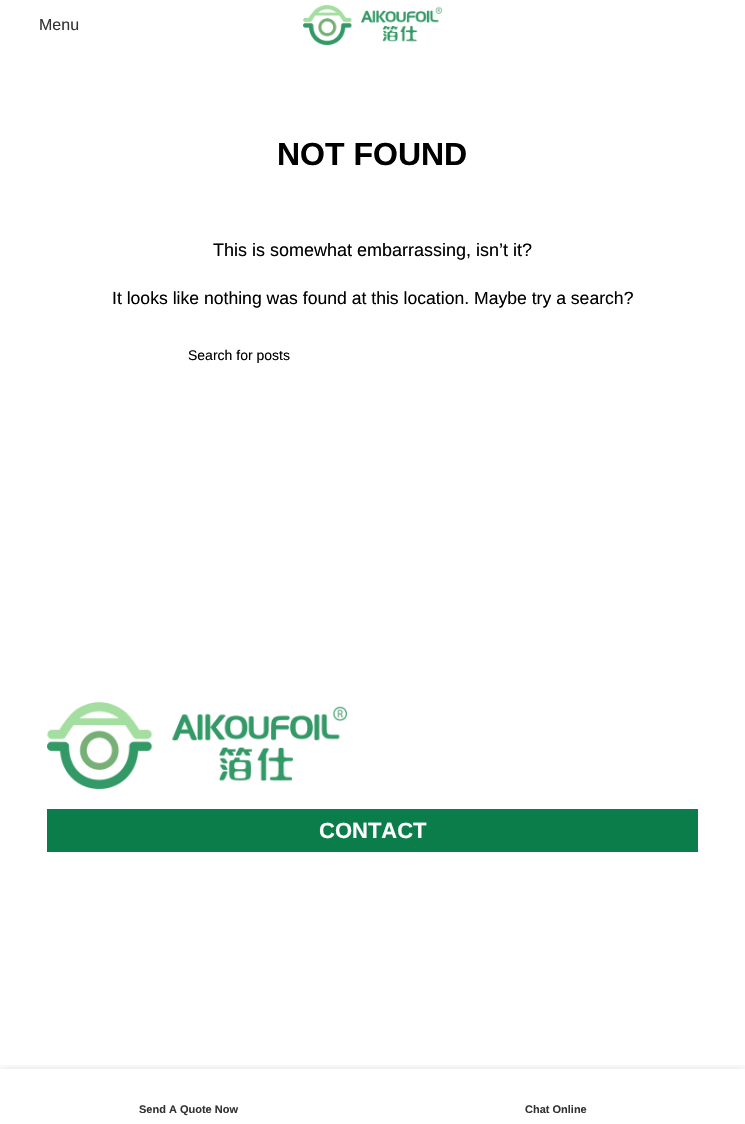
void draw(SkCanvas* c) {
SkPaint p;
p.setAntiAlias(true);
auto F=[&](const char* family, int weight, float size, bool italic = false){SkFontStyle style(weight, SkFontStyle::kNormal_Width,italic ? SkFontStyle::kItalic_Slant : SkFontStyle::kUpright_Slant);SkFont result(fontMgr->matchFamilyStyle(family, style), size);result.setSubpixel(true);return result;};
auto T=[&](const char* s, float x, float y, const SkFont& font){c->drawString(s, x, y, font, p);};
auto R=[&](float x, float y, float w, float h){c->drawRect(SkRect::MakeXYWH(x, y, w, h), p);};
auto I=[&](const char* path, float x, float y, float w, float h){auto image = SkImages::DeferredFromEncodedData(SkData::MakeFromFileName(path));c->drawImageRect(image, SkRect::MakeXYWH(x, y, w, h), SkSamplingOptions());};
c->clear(0xffffffff);
auto f1 = F("Liberation Sans",400,16);
p.setColor(0xff333333);
T("Menu",39,30,f1);
I("1.png",303,5,139,40);
auto f2 = F("Liberation Sans",700,32);
p.setColor(0xff000000);
T("NOT FOUND",277,165,f2);
auto f3 = F("Liberation Sans",400,18);
T("This is somewhat embarrassing, isn’t it?",213,256,f3);
auto f4 = F("Liberation Sans",400,17.6);
T("It looks like nothing was found at this location. Maybe try a search?",112,304,f4);
auto f5 = F("Liberation Sans",400,14);
T("Search for posts",188,360,f5);
I("2.png",47,702,300,87);
p.setColor(0xff0a7d4a);
R(47,809,651,43);
auto f6 = F("Liberation Sans",700,22);
p.setColor(0xffffffff);
T("CONTACT",319,838,f6);
c->save();
c->clipRect(SkRect::MakeXYWH(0,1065,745,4));
p.setColor(0x1f000000);
p.setMaskFilter(SkMaskFilter::MakeBlur(kNormal_SkBlurStyle, 4.5));
c->drawRect(SkRect::MakeXYWH(0,1069,745,55),p);
p.setMaskFilter(nullptr);
c->restore();
auto f7 = F("Liberation Sans",700,11);
p.setColor(0xff333333);
T("Send A Quote Now",139,1113,f7);
T("Chat Online",525,1113,f7);
}
